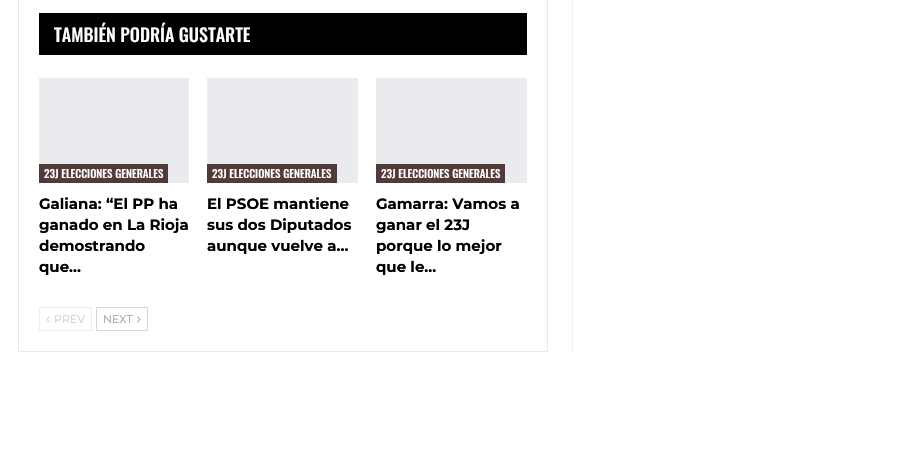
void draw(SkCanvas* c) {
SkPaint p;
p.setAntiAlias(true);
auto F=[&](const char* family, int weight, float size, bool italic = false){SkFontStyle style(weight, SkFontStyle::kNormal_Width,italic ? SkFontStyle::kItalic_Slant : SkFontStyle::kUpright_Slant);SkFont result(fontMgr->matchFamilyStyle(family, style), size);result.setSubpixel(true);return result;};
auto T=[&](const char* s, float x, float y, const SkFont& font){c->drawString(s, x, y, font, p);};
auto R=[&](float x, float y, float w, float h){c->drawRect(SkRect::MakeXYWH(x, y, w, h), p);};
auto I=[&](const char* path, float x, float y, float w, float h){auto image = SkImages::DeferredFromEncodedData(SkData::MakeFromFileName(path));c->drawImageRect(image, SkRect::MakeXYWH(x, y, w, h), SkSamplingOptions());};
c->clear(0xffffffff);
p.setStroke(true);
p.setStrokeWidth(1);
p.setColor(0xffe8e8e8);
c->drawRect(SkRect::MakeXYWH(18.5,-.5,529,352),p);
p.setStroke(false);
p.setColor(0xff000000);
R(39,13,488,42);
auto f1 = F("Oswald",500,18);
p.setColor(0xffffffff);
T("TAMBIÉN PODRÍA GUSTARTE",54,42,f1);
p.setColor(0xffe9ebee);
R(39,78,150,105);
p.setColor(0xff503b3a);
R(39,164,129,19);
auto f2 = F("Oswald",500,11);
p.setColor(0xffffffff);
T("23J ELECCIONES GENERALES",44,178,f2);
auto f3 = F("Montserrat",700,15);
p.setColor(0xff000000);
T("Galiana: “El PP ha",39,209,f3);
T("ganado en La Rioja",39,230,f3);
T("demostrando",39,251,f3);
T("que…",39,272,f3);
p.setColor(0xffe9ebee);
R(207,78,151,105);
p.setColor(0xff503b3a);
R(207,164,130,19);
p.setColor(0xffffffff);
T("23J ELECCIONES GENERALES",212,178,f2);
p.setColor(0xff000000);
T("El PSOE mantiene",207,209,f3);
T("sus dos Diputados",207,230,f3);
T("aunque vuelve a…",207,251,f3);
p.setColor(0xffe9ebee);
R(376,78,151,105);
p.setColor(0xff503b3a);
R(376,164,129,19);
p.setColor(0xffffffff);
T("23J ELECCIONES GENERALES",381,178,f2);
p.setColor(0xff000000);
T("Gamarra: Vamos a",376,209,f3);
T("ganar el 23J",376,230,f3);
T("porque lo mejor",376,251,f3);
T("que le…",376,272,f3);
p.setStroke(true);
p.setColor(0xffececec);
c->drawRect(SkRect::MakeXYWH(39.5,307.5,52,23),p);
I("1.png",46,316,4,7);
auto f4 = F("Montserrat",400,11);
p.setStroke(false);
p.setColor(0xffcfcfcf);
T("PREV",54,323,f4);
p.setStroke(true);
p.setColor(0xffd8d8d8);
c->drawRect(SkRect::MakeXYWH(96.5,307.5,51,23),p);
p.setStroke(false);
p.setColor(0xff9e9e9e);
T("NEXT",103,323,f4);
I("2.png",137,316,4,7);
p.setColor(0xffeeeeee);
R(572,0,1,351);
}
